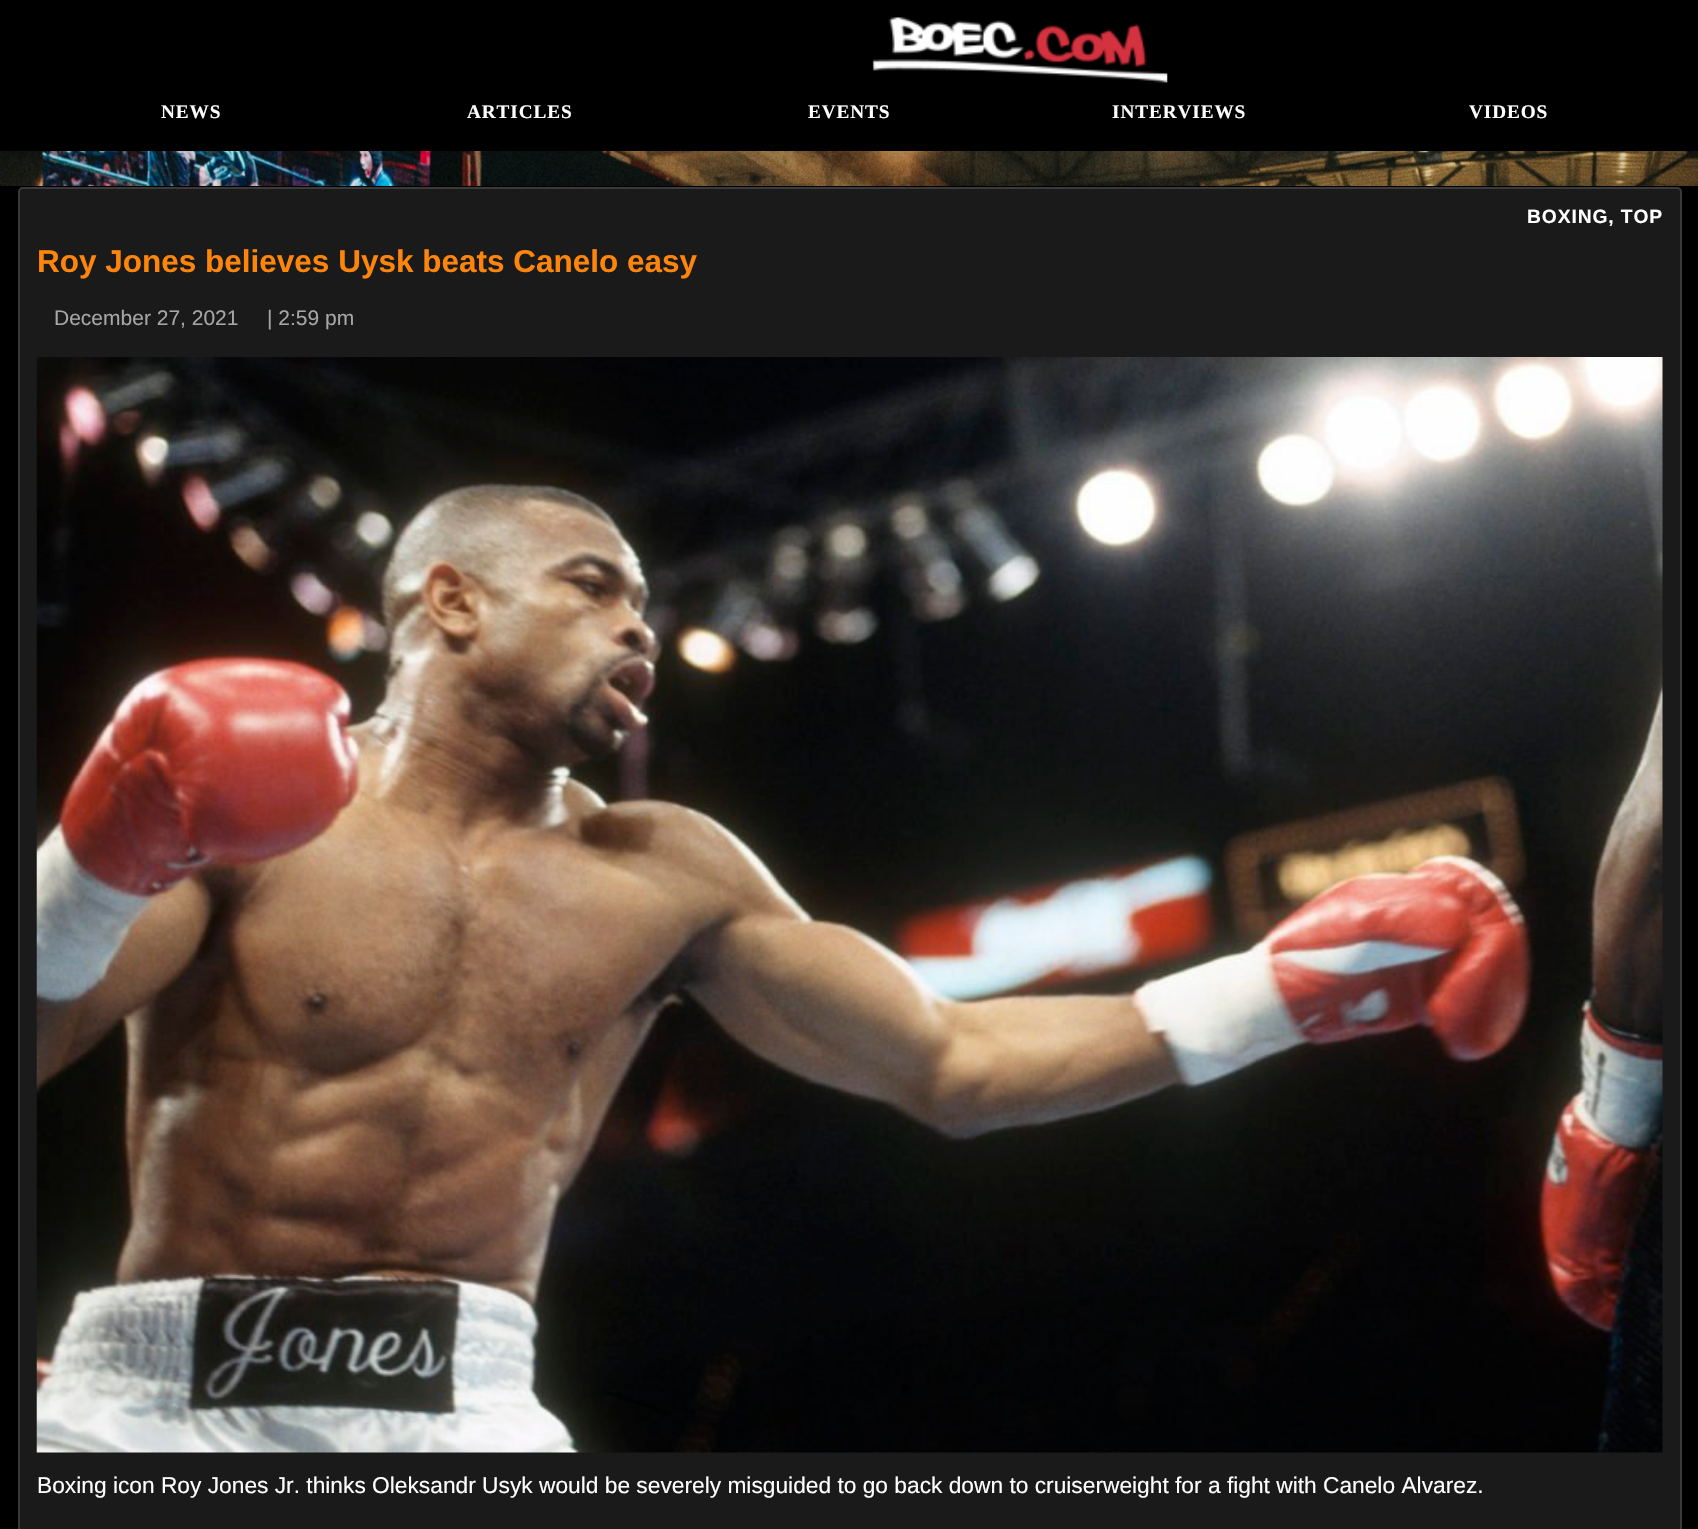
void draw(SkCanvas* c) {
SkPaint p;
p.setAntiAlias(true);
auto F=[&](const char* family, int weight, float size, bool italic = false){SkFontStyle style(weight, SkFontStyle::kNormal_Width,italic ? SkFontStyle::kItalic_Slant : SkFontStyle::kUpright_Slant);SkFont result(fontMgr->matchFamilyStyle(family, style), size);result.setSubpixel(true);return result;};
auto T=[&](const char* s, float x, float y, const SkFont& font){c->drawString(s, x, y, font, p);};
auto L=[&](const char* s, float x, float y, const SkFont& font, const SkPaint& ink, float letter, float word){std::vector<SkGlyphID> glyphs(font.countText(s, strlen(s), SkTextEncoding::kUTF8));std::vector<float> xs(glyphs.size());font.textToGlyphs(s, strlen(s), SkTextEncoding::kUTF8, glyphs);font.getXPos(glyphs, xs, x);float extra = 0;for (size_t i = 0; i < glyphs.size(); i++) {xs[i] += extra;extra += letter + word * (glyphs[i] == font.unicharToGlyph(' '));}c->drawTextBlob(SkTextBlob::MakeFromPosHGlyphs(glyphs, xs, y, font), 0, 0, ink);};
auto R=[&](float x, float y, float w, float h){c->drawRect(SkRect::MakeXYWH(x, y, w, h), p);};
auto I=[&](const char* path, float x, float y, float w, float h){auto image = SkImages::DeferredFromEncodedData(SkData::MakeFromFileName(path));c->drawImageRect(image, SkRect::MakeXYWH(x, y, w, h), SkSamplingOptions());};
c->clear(0xffffffff);
I("1.png",0,151,1698,35);
p.setColor(0xff000000);
R(0,0,1698,151);
I("2.png",872,17,296,66);
auto f1 = F("Liberation Serif",700,19.25);
p.setColor(0xffffffff);
L("NEWS",161,118,f1,p,.9,0);
L("ARTICLES",467,118,f1,p,.9,0);
L("EVENTS",808,118,f1,p,.9,0);
L("INTERVIEWS",1112,118,f1,p,.9,0);
L("VIDEOS",1469,118,f1,p,.9,0);
p.setColor(0xff000000);
R(0,186,1698,1343);
p.setColor(0xff1a1a1a);
c->drawRoundRect(SkRect::MakeXYWH(19,188,1662,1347),4,4,p);
p.setStroke(true);
p.setStrokeWidth(2);
p.setColor(0xff3a3a3a);
c->drawRoundRect(SkRect::MakeXYWH(19,188,1662,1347),4,4,p);
auto f2 = F("Liberation Sans",700,19.25);
p.setStroke(false);
p.setColor(0xffffffff);
L("BOXING, TOP",1527,223,f2,p,.9,0);
auto f3 = F("Liberation Sans",700,31.5);
p.setColor(0xfffe850c);
T("Roy Jones believes Uysk beats Canelo easy",37,272,f3);
auto f4 = F("Liberation Sans",400,21);
p.setColor(0xffa6a6a6);
T("December 27, 2021",54,325,f4);
T("| 2:59 pm",267,325,f4);
I("3.png",36,357,1627,1096);
auto f5 = F("Liberation Sans",400,22.75);
p.setColor(0xffffffff);
T("Boxing icon Roy Jones Jr. thinks Oleksandr Usyk would be severely misguided to go back down to cruiserweight for a fight with Canelo Alvarez.",37,1493,f5);
}
